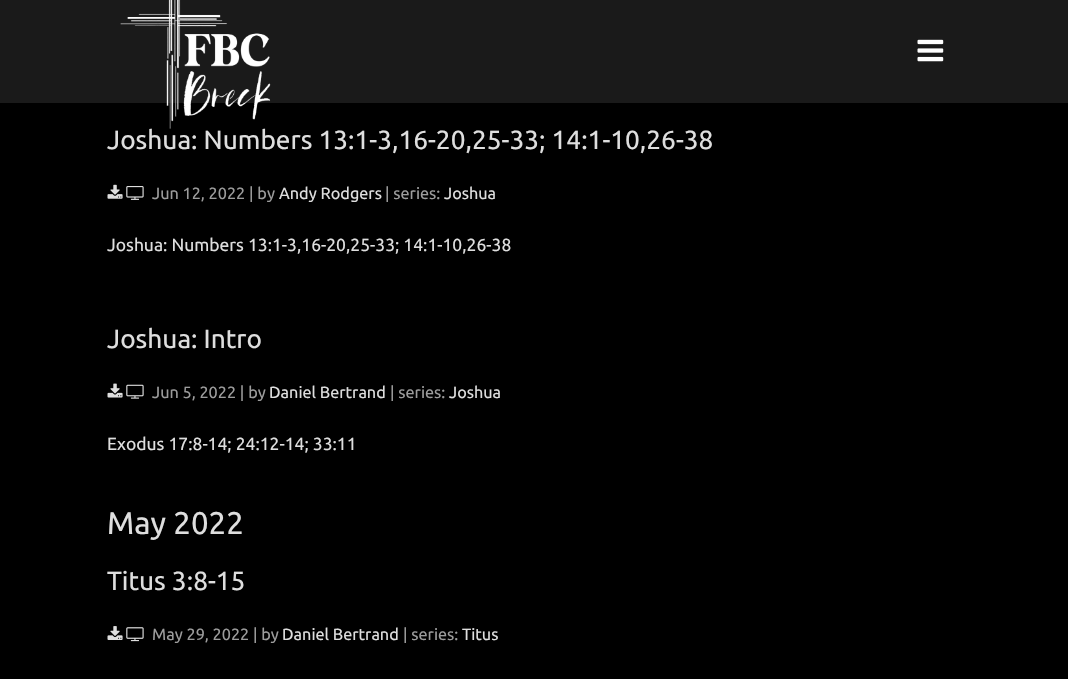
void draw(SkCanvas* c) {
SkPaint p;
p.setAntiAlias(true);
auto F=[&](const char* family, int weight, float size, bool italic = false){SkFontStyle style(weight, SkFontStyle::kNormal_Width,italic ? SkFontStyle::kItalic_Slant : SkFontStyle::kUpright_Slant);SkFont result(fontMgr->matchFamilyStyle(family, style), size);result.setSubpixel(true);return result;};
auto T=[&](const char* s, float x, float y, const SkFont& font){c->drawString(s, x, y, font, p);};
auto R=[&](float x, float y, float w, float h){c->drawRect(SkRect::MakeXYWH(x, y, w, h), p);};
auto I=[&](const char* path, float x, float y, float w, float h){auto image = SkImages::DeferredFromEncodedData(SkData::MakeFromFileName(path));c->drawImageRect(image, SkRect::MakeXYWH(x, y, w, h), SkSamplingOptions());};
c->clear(0xff000000);
p.setColor(0xff1a1a1a);
R(0,0,1068,103);
auto f1 = F("Ubuntu",400,26.25);
p.setColor(0xffdedede);
T("Joshua: Numbers 13:1-3,16-20,25-33; 14:1-10,26-38",107,149,f1);
I("1.png",120,0,151,129);
I("2.png",917,39,27,23);
I("3.png",107,184,16,15);
I("4.png",126,186,18,14);
auto f2 = F("Ubuntu",400,16.25);
p.setColor(0xff9c9c9c);
T("Jun 12, 2022 | by",152,199,f2);
p.setColor(0xffdedede);
T("Andy Rodgers",279,199,f2);
p.setColor(0xff9c9c9c);
T("| series:",385,199,f2);
p.setColor(0xffdedede);
T("Joshua",444,199,f2);
auto f3 = F("Ubuntu",400,17.5);
T("Joshua: Numbers 13:1-3,16-20,25-33; 14:1-10,26-38",107,251,f3);
T("Joshua: Intro",107,348,f1);
I("5.png",107,383,16,15);
I("6.png",126,384,18,15);
p.setColor(0xff9c9c9c);
T("Jun 5, 2022 | by",152,398,f2);
p.setColor(0xffdedede);
T("Daniel Bertrand",269,398,f2);
p.setColor(0xff9c9c9c);
T("| series:",390,398,f2);
p.setColor(0xffdedede);
T("Joshua",449,398,f2);
T("Exodus 17:8-14; 24:12-14; 33:11",107,450,f3);
auto f4 = F("Ubuntu",400,31.25);
T("May 2022",107,534,f4);
T("Titus 3:8-15",107,590,f1);
I("7.png",107,626,16,14);
I("8.png",126,627,18,15);
p.setColor(0xff9c9c9c);
T("May 29, 2022 | by",152,640,f2);
p.setColor(0xffdedede);
T("Daniel Bertrand",282,640,f2);
p.setColor(0xff9c9c9c);
T("| series:",403,640,f2);
p.setColor(0xffdedede);
T("Titus",462,640,f2);
}
